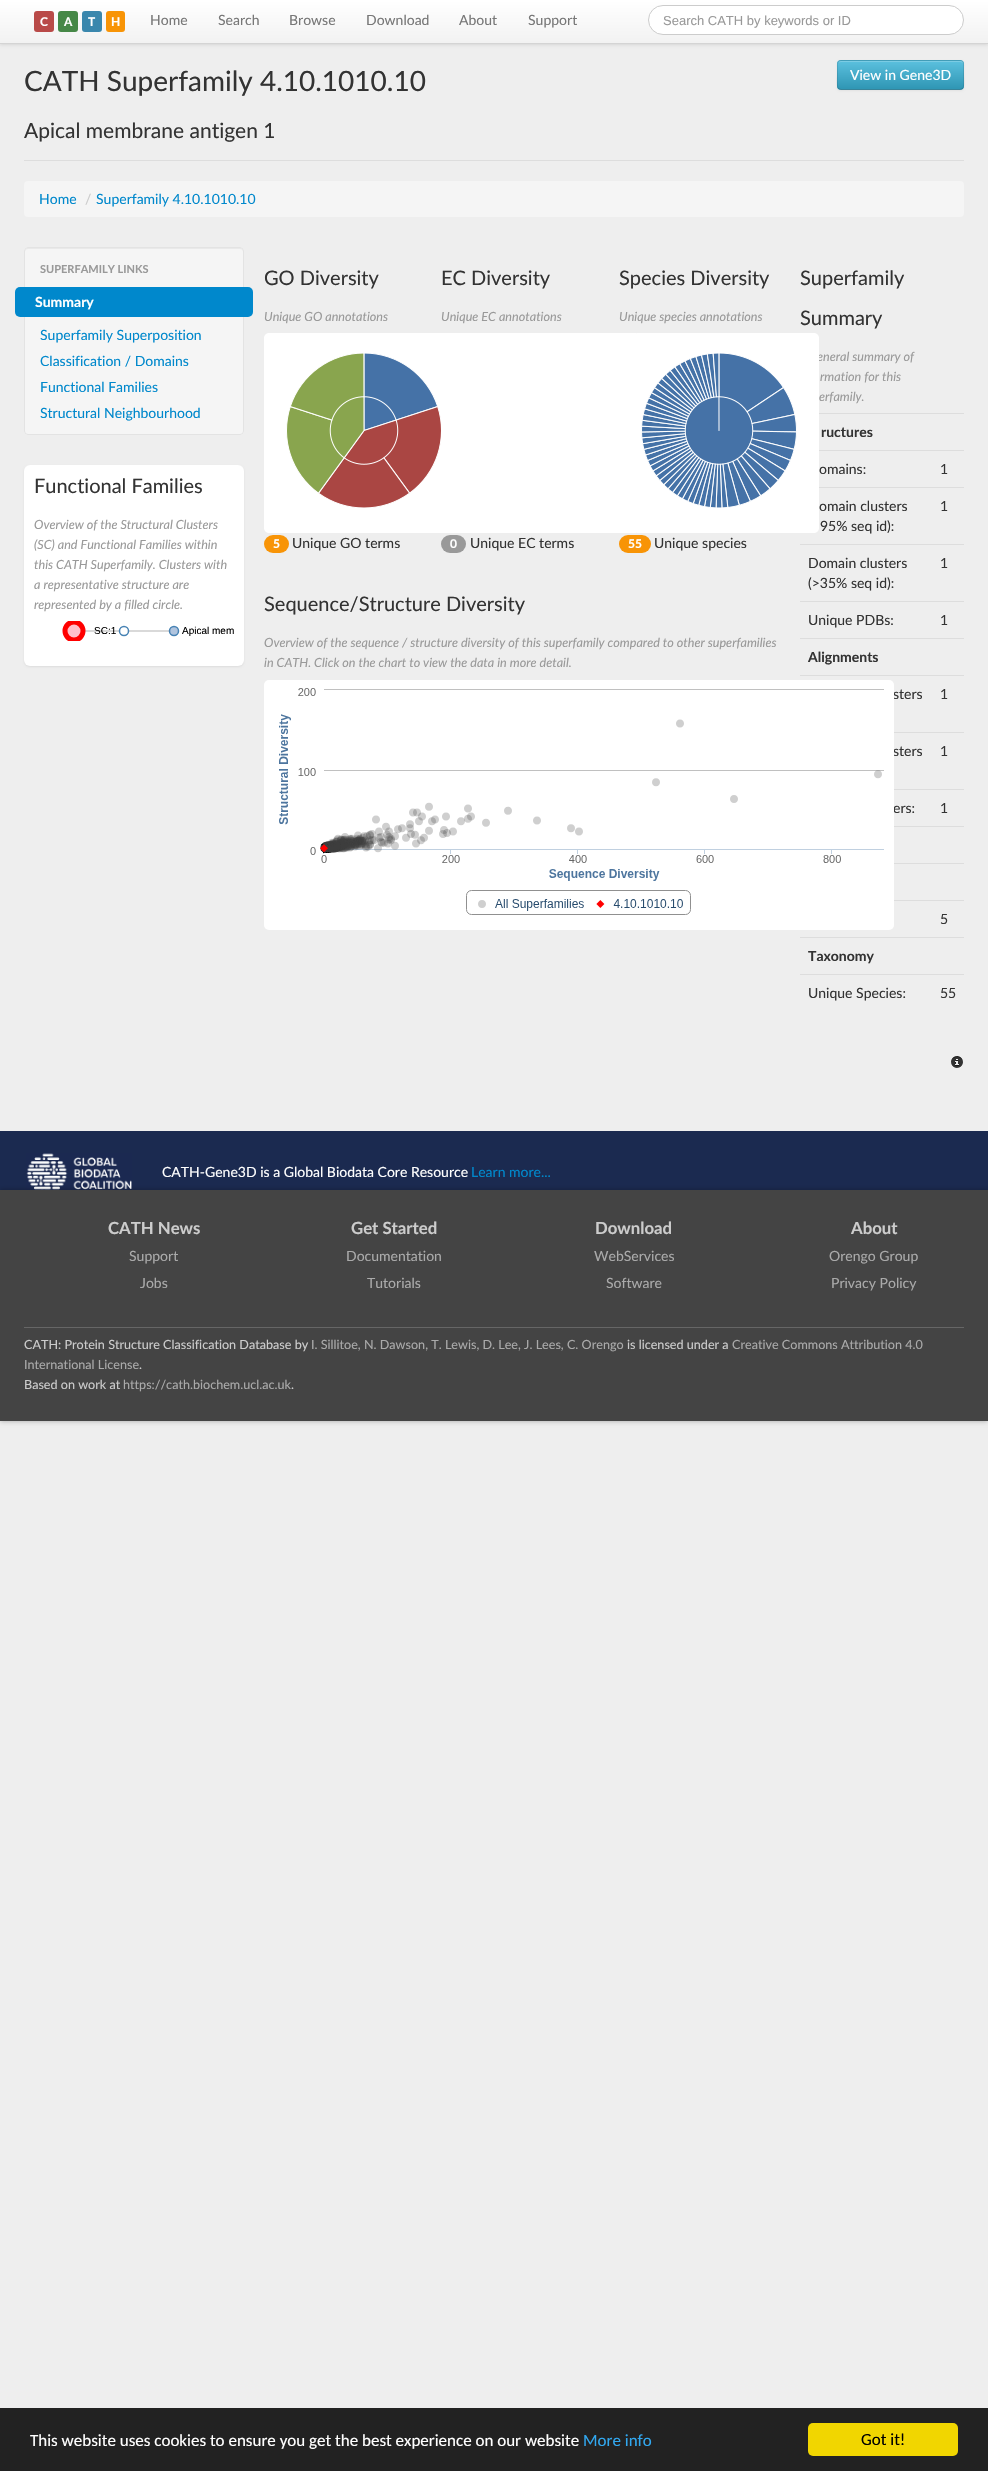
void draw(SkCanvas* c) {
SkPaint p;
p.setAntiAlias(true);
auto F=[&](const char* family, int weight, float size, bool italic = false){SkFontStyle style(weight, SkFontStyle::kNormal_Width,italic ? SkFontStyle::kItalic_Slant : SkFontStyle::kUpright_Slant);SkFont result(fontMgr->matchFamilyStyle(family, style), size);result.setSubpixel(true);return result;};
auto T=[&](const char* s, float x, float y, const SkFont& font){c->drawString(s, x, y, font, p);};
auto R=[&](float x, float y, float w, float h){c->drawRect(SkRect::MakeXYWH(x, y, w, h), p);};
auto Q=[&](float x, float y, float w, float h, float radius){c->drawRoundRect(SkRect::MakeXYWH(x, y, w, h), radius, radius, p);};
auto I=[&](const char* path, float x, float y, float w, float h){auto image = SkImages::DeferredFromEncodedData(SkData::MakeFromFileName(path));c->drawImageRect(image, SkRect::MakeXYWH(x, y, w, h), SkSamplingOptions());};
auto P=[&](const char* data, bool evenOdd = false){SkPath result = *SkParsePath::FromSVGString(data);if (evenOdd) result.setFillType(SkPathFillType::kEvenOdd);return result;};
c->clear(0xffeeeeee);
p.setColor(0x1a000000);
p.setMaskFilter(SkMaskFilter::MakeBlur(kNormal_SkBlurStyle, 1.5));
c->drawRect(SkRect::MakeXYWH(0,1,988,44),p);
p.setMaskFilter(nullptr);
{
const SkColor colors[] = {0xffffffff,0xfff2f2f2};
const float stops[] = {0,1};
const SkPoint ends[] = {{494,0}, {494,43}};
p.setShader(SkGradientShader::MakeLinear(ends, colors, stops, 2, SkTileMode::kClamp));
p.setAlpha(255);
}
R(0,0,988,43);
p.setShader(nullptr);
p.setColor(0xffd4d4d4);
R(0,43,988,1);
p.setColor(0xffb94a48);
Q(34,11,20,21,3);
auto f1 = F("Lato",700,12);
p.setColor(0xffffffff);
T("C",40,26,f1);
p.setColor(0xff468847);
Q(58,11,20,21,3);
p.setColor(0xffffffff);
T("A",64,26,f1);
p.setColor(0xff3a87ad);
Q(82,11,20,21,3);
p.setColor(0xffffffff);
T("T",88,26,f1);
p.setColor(0xfff89406);
Q(106,11,19,21,3);
p.setColor(0xffffffff);
T("H",111,26,f1);
auto f2 = F("Lato",400,14);
p.setColor(0xff777777);
T("Home",150,25,f2);
T("Search",218,25,f2);
T("Browse",289,25,f2);
T("Download",366,25,f2);
T("About",459,25,f2);
T("Support",528,25,f2);
p.setColor(0xffffffff);
c->drawRoundRect(SkRect::MakeXYWH(648.5,5.5,315,29),14.5,14.5,p);
p.setStroke(true);
p.setStrokeWidth(1);
p.setColor(0xffcccccc);
c->drawRoundRect(SkRect::MakeXYWH(648.5,5.5,315,29),14.5,14.5,p);
auto f3 = F("Liberation Sans",400,13);
p.setStroke(false);
p.setColor(0xff999999);
T("Search CATH by keywords or ID",663,25,f3);
p.setColor(0xffdddddd);
R(24,160,940,1);
auto f4 = F("Lato",400,28);
p.setColor(0xff333333);
T("CATH Superfamily 4.10.1010.10",24,91,f4);
p.setColor(0x0d000000);
p.setMaskFilter(SkMaskFilter::MakeBlur(kNormal_SkBlurStyle, 1));
c->drawRoundRect(SkRect::MakeXYWH(837,61,127,30),4,4,p);
p.setMaskFilter(nullptr);
p.setColor(0xff49afcd);
Q(837,60,127,30,4);
c->save();
c->clipPath(P("M841 60h119c2 0 4 2 4 4v22c0 2-2 4-4 4h-119c-2 0-4-2-4-4v-22c0-2 2-4 4-4z"),true);
{
const SkColor colors[] = {0xff5bc0de,0xff2f96b4};
const float stops[] = {0,1};
const SkPoint ends[] = {{901,61}, {901,89}};
p.setShader(SkGradientShader::MakeLinear(ends, colors, stops, 2, SkTileMode::kClamp));
p.setAlpha(255);
}
R(837,61,127,28);
c->restore();
p.setShader(nullptr);
p.setColor(0xff7bcce4);
c->drawPath(P("M841 62h119c2 0 3 1 3 3c0-2 0-4-2-4h-120c-2 0-3 2-3 4c0-2 1-3 3-3z"),p);
p.setStroke(true);
p.setColor(0x40000000);
c->drawPath(P("M962.5 88.5c-.5 .5-1.5 1-2.5 1h-119c-1 0-2-.5-2.5-1"),p);
p.setColor(0x1a000000);
c->drawPath(P("M838.5 88.5c-2-2-1-10.5-1-13.5v-7.5c0-2.5-.5-7 3.5-7h119c4 0 3.5 4.5 3.5 7v7.5c0 3 1 11.5-1 13.5"),p);
p.setStroke(false);
p.setColor(0xffffffff);
T("View in Gene3D",850,80,f2);
auto f5 = F("Lato",400,21);
p.setColor(0xff333333);
T("Apical membrane antigen 1",24,138,f5);
p.setColor(0xfff5f5f5);
Q(24,181,940,36,4);
p.setColor(0xff0088cc);
T("Home",39,204,f2);
p.setColor(0xffcccccc);
T("/",85,204,f2);
p.setColor(0xff0088cc);
T("Superfamily 4.10.1010.10",96,204,f2);
p.setColor(0xfff5f5f5);
Q(24,247,220,188,4);
p.setColor(0xffe9e9e9);
c->drawPath(P("M28 249h212c2 0 3 1 3 3v-1c0-2-1-3-3-3h-212c-2 0-3 1-3 3v1c0-2 1-3 3-3z"),p);
p.setStroke(true);
p.setColor(0xffe3e3e3);
c->drawRoundRect(SkRect::MakeXYWH(24.5,247.5,219,187),3.5,3.5,p);
auto f6 = F("Lato",700,11);
p.setStroke(false);
p.setColor(0xff999999);
T("SUPERFAMILY LINKS",40,273,f6);
p.setColor(0xff0088cc);
Q(15,287,238,30,5);
auto f7 = F("Lato",700,14);
p.setColor(0xffffffff);
T("Summary",35,307,f7);
p.setColor(0xff0088cc);
T("Superfamily Superposition",40,340,f2);
T("Classification / Domains",40,366,f2);
T("Functional Families",40,392,f2);
T("Structural Neighbourhood",40,418,f2);
p.setColor(0x12000000);
p.setMaskFilter(SkMaskFilter::MakeBlur(kNormal_SkBlurStyle, 1));
c->drawRoundRect(SkRect::MakeXYWH(24,466,220,201),6,6,p);
p.setMaskFilter(nullptr);
p.setColor(0xffffffff);
Q(24,465,220,201,6);
auto f8 = F("Lato",400,20);
p.setColor(0xff333333);
T("Functional Families",34,493,f8);
auto f9 = F("Lato",400,12.6,true);
p.setColor(0xff999999);
T("Overview of the Structural Clusters",34,529,f9);
T("(SC) and Functional Families within",34,549,f9);
T("this CATH Superfamily. Clusters with",34,569,f9);
T("a representative structure are",34,589,f9);
T("represented by a filled circle.",34,609,f9);
p.setColor(0xffd9d9d9);
R(85,630,89,2);
auto f10 = F("Liberation Sans",400,10);
p.setColor(0xff000000);
T("SC:1",94,634,f10);
p.setColor(0xffffc0cb);
c->drawCircle(74,631,9,p);
c->save();
c->clipRect(SkRect::MakeXYWH(34,621,200,20));
p.setStroke(true);
p.setStrokeWidth(5);
p.setColor(0xffff0000);
c->drawCircle(74,631,9,p);
c->restore();
p.setStroke(false);
p.setColor(0xffffffff);
c->drawCircle(124,631,4.5,p);
p.setStroke(true);
p.setStrokeWidth(1.5);
p.setColor(0xff4682b4);
c->drawCircle(124,631,4.5,p);
p.setStroke(false);
p.setColor(0xff000000);
T("Apical mem",182,634,f10);
p.setColor(0xffb0c4de);
c->drawCircle(174,631,4.5,p);
p.setStroke(true);
p.setColor(0xff4682b4);
c->drawCircle(174,631,4.5,p);
p.setStroke(false);
p.setColor(0xff333333);
T("GO Diversity",264,285,f8);
p.setColor(0xff999999);
T("Unique GO annotations",264,321,f9);
I("1.png",264,333,182,200);
p.setColor(0xfff89406);
Q(264,535,25,18,9);
p.setColor(0xffffffff);
T("5",273,548,f1);
p.setColor(0xff333333);
T("Unique GO terms",292,548,f2);
T("EC Diversity",441,285,f8);
p.setColor(0xff999999);
T("Unique EC annotations",441,321,f9);
p.setColor(0xffffffff);
Q(441,333,200,200,5);
p.setColor(0xff999999);
Q(441,535,25,18,9);
p.setColor(0xffffffff);
T("0",450,548,f1);
p.setColor(0xff333333);
T("Unique EC terms",470,548,f2);
T("Species Diversity",619,285,f8);
p.setColor(0xff999999);
T("Unique species annotations",619,321,f9);
T("eneral summary of",817,361,f9);
T("erfamily.",819,401,f9);
I("2.png",637,333,182,200);
p.setColor(0xfff89406);
Q(619,535,32,18,9);
p.setColor(0xffffffff);
T("55",628,548,f1);
p.setColor(0xff333333);
T("Unique species",654,548,f2);
T("Sequence/Structure Diversity",264,611,f8);
p.setColor(0xff999999);
T("Overview of the sequence / structure diversity of this superfamily compared to other superfamilies",264,647,f9);
T("in CATH. Click on the chart to view the data in more detail.",264,667,f9);
p.setColor(0xff333333);
T("sters",893,699,f2);
T("sters",893,756,f2);
T("ers:",893,813,f2);
I("3.png",264,680,630,250);
T("Superfamily",800,285,f8);
T("Summary",800,325,f8);
p.setColor(0xff999999);
T("rmation for this",820,381,f9);
p.setColor(0xffdddddd);
R(819,413,145,1);
p.setColor(0xff333333);
T("ructures",821,437,f7);
T("omains:",819,474,f2);
p.setColor(0xffdddddd);
R(819,450,145,1);
p.setColor(0xff333333);
T("1",940,474,f2);
T("omain clusters",819,511,f2);
T("95% seq id):",820,531,f2);
p.setColor(0xffdddddd);
R(819,487,145,1);
p.setColor(0xff333333);
T("1",940,511,f2);
T("Domain clusters",808,568,f2);
T("(>35% seq id):",808,588,f2);
p.setColor(0xffdddddd);
R(800,544,164,1);
p.setColor(0xff333333);
T("1",940,568,f2);
T("Unique PDBs:",808,625,f2);
p.setColor(0xffdddddd);
R(800,601,164,1);
p.setColor(0xff333333);
T("1",940,625,f2);
p.setColor(0xffdddddd);
R(800,638,164,1);
p.setColor(0xff333333);
T("Alignments",808,662,f7);
p.setColor(0xffdddddd);
R(800,675,164,1);
p.setColor(0xff333333);
T("1",940,699,f2);
p.setColor(0xffdddddd);
R(894,732,70,1);
p.setColor(0xff333333);
T("1",940,756,f2);
p.setColor(0xffdddddd);
R(894,789,70,1);
p.setColor(0xff333333);
T("1",940,813,f2);
p.setColor(0xffdddddd);
R(894,826,70,1);
R(894,863,70,1);
R(894,900,70,1);
p.setColor(0xff333333);
T("5",940,924,f2);
p.setColor(0xffdddddd);
R(800,937,164,1);
p.setColor(0xff333333);
T("Taxonomy",808,961,f7);
T("Unique Species:",808,998,f2);
p.setColor(0xffdddddd);
R(800,974,164,1);
p.setColor(0xff333333);
T("55",940,998,f2);
I("4.png",951,1056,12,12);
p.setColor(0xff1b2a50);
R(0,1131,988,59);
I("5.png",26,1153,106,37);
p.setColor(0xffffffff);
T("CATH-Gene3D is a Global Biodata Core Resource",162,1177,f2);
p.setColor(0xff0088cc);
T("Learn more...",471,1177,f2);
p.setColor(0x4d000000);
p.setMaskFilter(SkMaskFilter::MakeBlur(kNormal_SkBlurStyle, 2.5));
c->drawRect(SkRect::MakeXYWH(0,1190,988,231),p);
p.setMaskFilter(nullptr);
p.setColor(0xff444444);
R(0,1190,988,231);
auto f11 = F("Lato",700,16.75);
p.setColor(0xffcccccc);
T("CATH News",108,1234,f11);
p.setColor(0xffaaaaaa);
T("Support",129,1261,f2);
T("Jobs",140,1288,f2);
p.setColor(0xffcccccc);
T("Get Started",351,1234,f11);
p.setColor(0xffaaaaaa);
T("Documentation",346,1261,f2);
T("Tutorials",367,1288,f2);
p.setColor(0xffcccccc);
T("Download",595,1234,f11);
p.setColor(0xffaaaaaa);
T("WebServices",594,1261,f2);
T("Software",606,1288,f2);
p.setColor(0xffcccccc);
T("About",851,1234,f11);
p.setColor(0xffaaaaaa);
T("Orengo Group",829,1261,f2);
T("Privacy Policy",831,1288,f2);
p.setColor(0xff666666);
R(24,1327,940,1);
auto f12 = F("Lato",400,12.6);
p.setColor(0xffcccccc);
T("CATH: Protein Structure Classification Database by",24,1349,f12);
p.setColor(0xffaaaaaa);
T("I. Sillitoe, N. Dawson, T. Lewis, D. Lee, J. Lees, C. Orengo",311,1349,f12);
p.setColor(0xffcccccc);
T("is licensed under a",627,1349,f12);
p.setColor(0xffaaaaaa);
T("Creative Commons Attribution 4.0",732,1349,f12);
T("International License",24,1369,f12);
p.setColor(0xffcccccc);
T(".",139,1369,f12);
T("Based on work at",24,1389,f12);
p.setColor(0xffaaaaaa);
T("https://cath.biochem.ucl.ac.uk",123,1389,f12);
p.setColor(0xffcccccc);
T(".",291,1389,f12);
p.setColor(0xff222222);
R(0,2408,988,63);
auto f13 = F("Carlito",400,17);
p.setColor(0xffffffff);
T("This website uses cookies to ensure you get the best experience on our website",30,2446,f13);
p.setColor(0xff31a8f0);
T("More info",583,2446,f13);
p.setColor(0xfff1d600);
Q(808,2423,150,33,5);
p.setColor(0xff000000);
T("Got it!",861,2445,f13);
}
